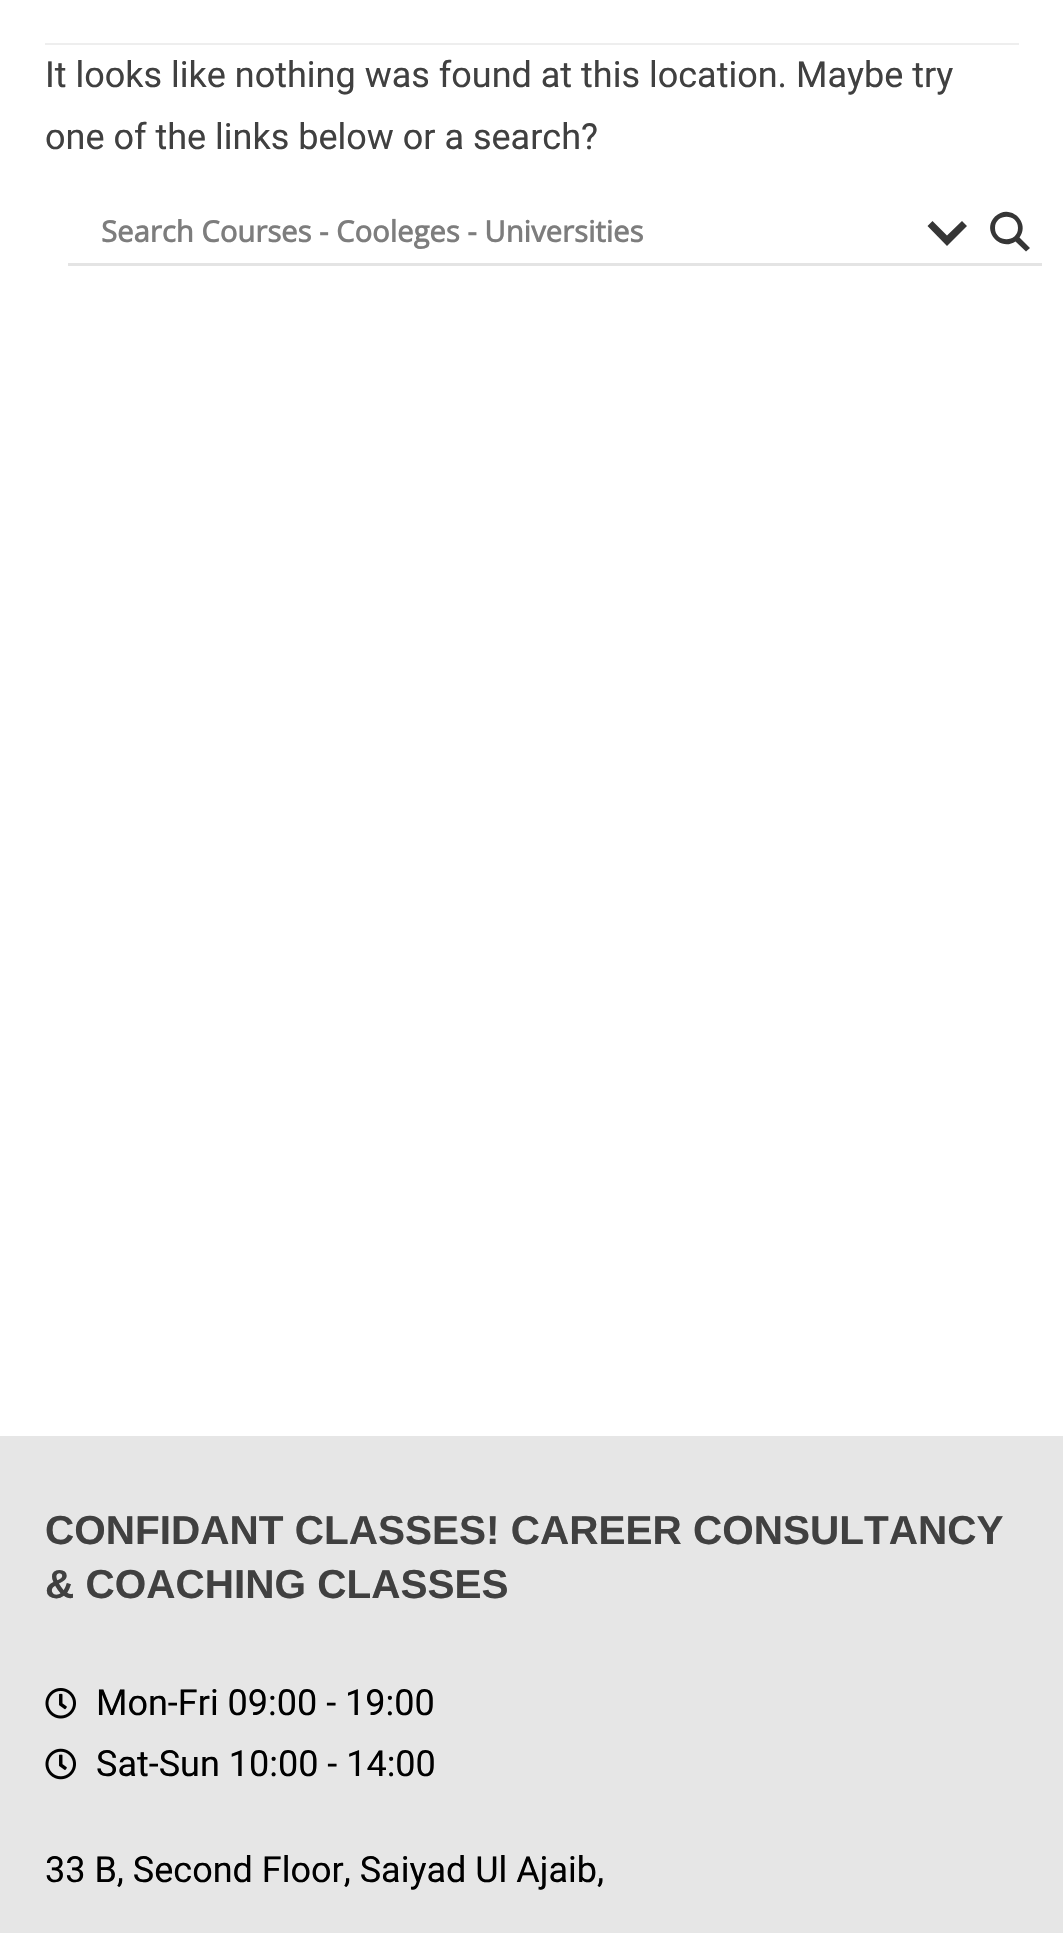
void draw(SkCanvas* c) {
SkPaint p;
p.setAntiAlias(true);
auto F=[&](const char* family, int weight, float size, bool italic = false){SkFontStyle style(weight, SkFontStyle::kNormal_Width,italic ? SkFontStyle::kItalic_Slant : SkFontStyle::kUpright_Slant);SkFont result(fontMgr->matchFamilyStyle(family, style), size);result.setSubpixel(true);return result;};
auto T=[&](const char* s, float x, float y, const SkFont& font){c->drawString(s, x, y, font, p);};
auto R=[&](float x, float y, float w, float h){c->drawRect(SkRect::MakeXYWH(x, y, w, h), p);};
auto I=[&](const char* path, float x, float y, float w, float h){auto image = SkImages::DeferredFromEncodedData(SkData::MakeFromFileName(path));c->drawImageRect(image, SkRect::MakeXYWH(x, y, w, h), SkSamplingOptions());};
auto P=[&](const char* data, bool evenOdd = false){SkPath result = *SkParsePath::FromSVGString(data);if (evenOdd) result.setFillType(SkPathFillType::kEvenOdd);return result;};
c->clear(0xffffffff);
p.setColor(0xffeeeeee);
R(45,43,974,2);
auto f1 = F("Roboto",400,36);
p.setColor(0xff404040);
T("It looks like nothing was found at this location. Maybe try",45,87,f1);
T("one of the links below or a search?",45,149,f1);
p.setColor(0xffe4e4e4);
c->drawPath(P("M68 263v3h974v-63v60z"),p);
auto f2 = F("Open Sans",700,29.25);
p.setColor(0xff7d7d7d);
T("Search Courses - Cooleges - Universities",101,242,f2);
p.setColor(0xff363636);
c->drawPath(P("M962 221l5 5l-20 20l-19.5-20l5-5l14.5 14.5z"),p);
c->drawPath(P("M1030 248l-10.5-10.5c11.5-15.5-10-35-24.5-21c-14 14 5 35.5 20.5 25l10.5 10zm-35-20c0-15 23-15 23 0c0 15-23 15-23 0z"),p);
p.setColor(0xffe6e6e6);
R(0,1436,1063,497);
auto f3 = F("Liberation Sans",700,40.5);
p.setColor(0xff404040);
T("CONFIDANT CLASSES! CAREER CONSULTANCY",45,1544,f3);
T("& COACHING CLASSES",45,1598,f3);
I("1.png",45,1688,31,31);
p.setColor(0xff000000);
T("Mon-Fri 09:00 - 19:00",96,1715,f1);
I("2.png",45,1748,31,32);
T("Sat-Sun 10:00 - 14:00",96,1776,f1);
T("33 B, Second Floor, Saiyad Ul Ajaib,",45,1882,f1);
}
